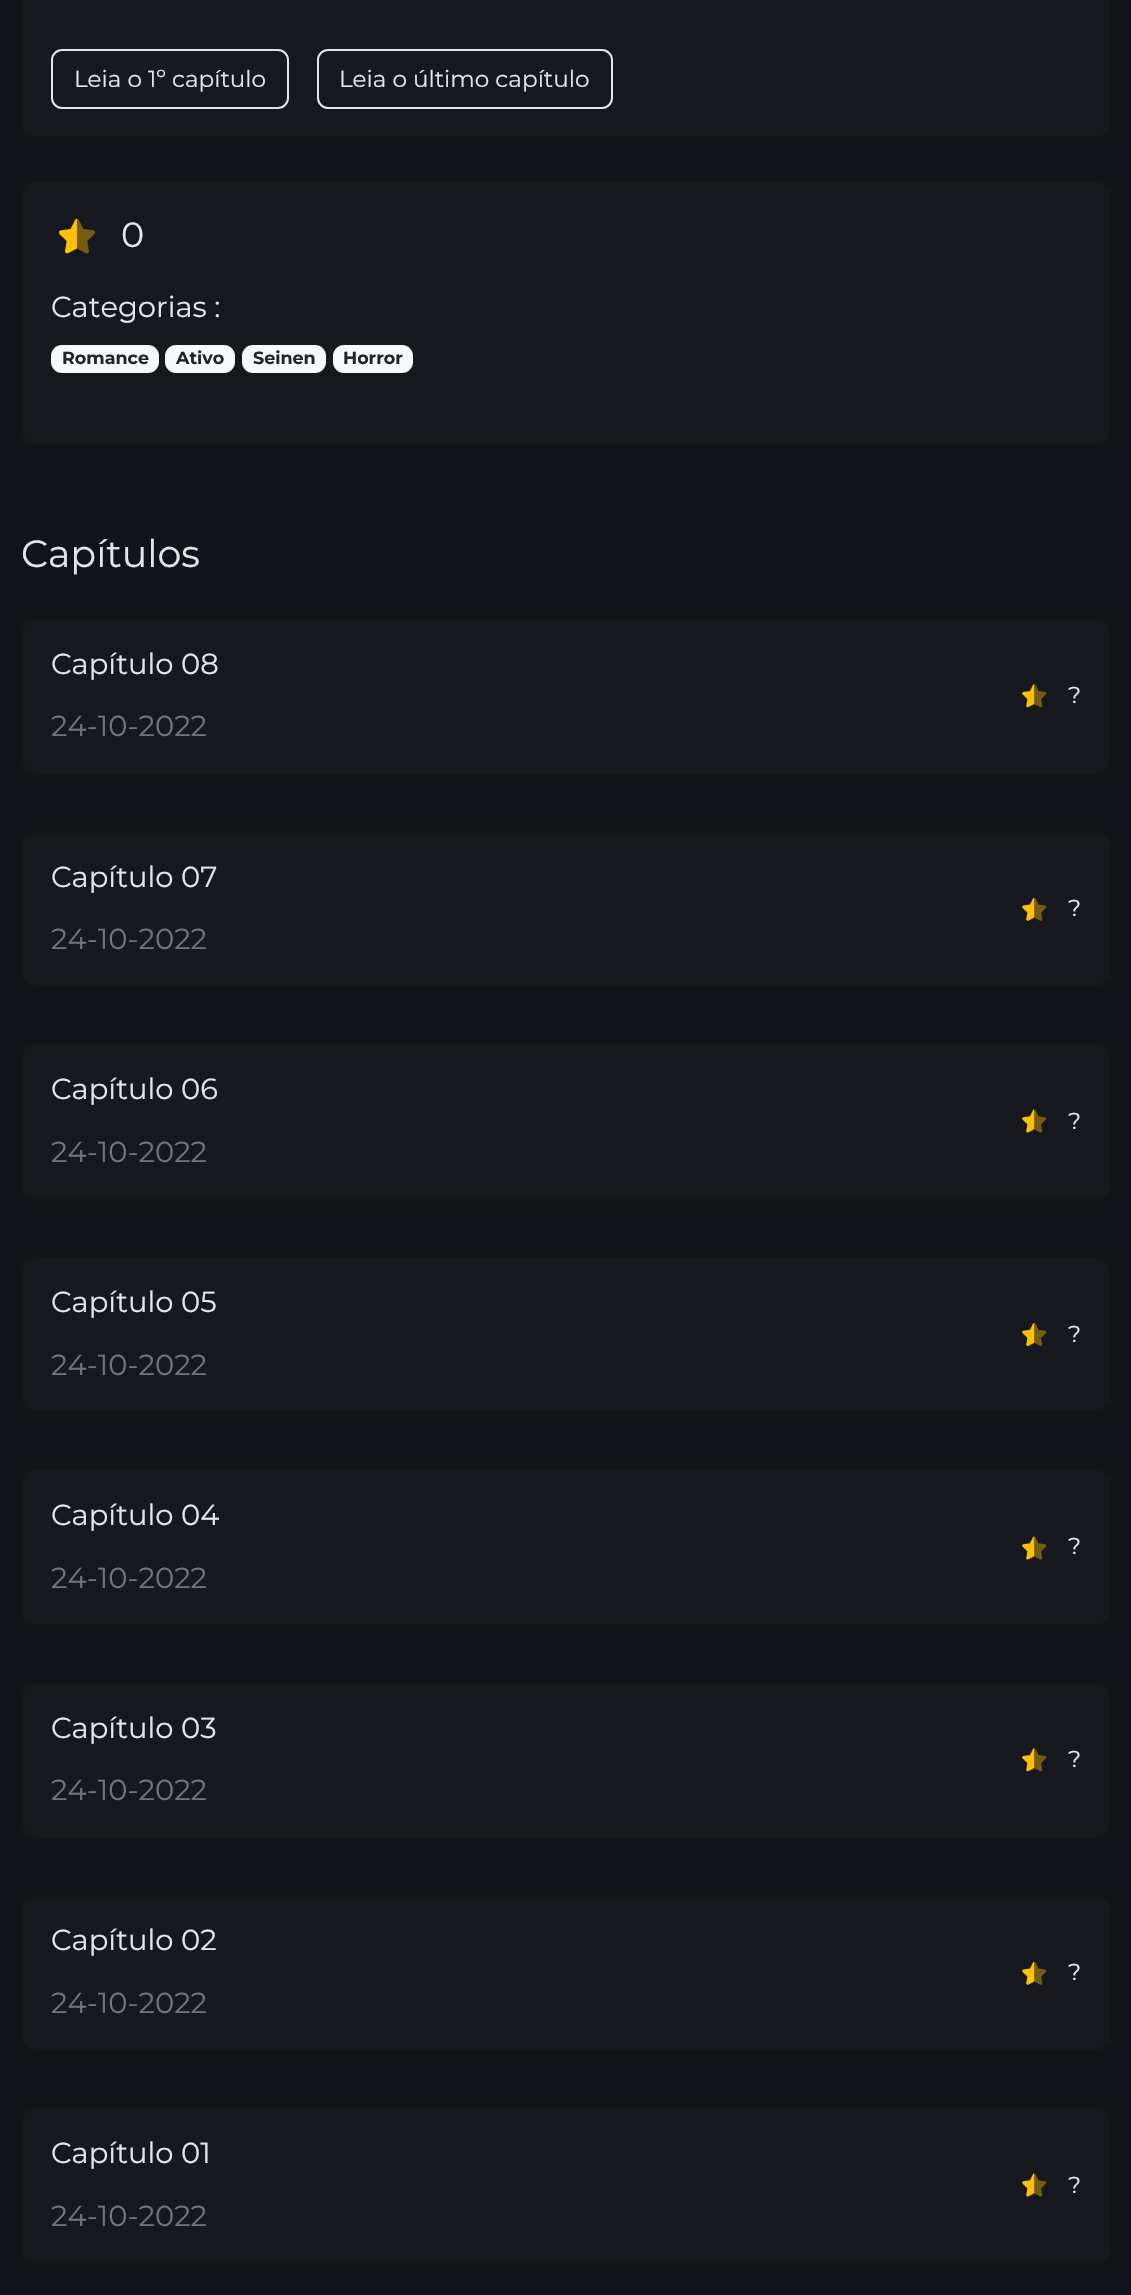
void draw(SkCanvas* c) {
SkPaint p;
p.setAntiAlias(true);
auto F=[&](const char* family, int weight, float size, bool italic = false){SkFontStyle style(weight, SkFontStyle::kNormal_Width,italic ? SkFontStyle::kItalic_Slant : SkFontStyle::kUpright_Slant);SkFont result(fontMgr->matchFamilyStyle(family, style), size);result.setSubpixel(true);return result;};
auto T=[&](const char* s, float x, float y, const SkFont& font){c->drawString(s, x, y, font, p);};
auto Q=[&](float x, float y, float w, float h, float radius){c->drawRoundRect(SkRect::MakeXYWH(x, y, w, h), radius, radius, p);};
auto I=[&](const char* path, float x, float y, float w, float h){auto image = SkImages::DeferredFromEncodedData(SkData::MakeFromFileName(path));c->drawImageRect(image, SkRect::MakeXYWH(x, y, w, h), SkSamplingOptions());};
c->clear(0xff121318);
p.setColor(0xff17181d);
Q(21,-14,1090,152,14);
p.setStroke(true);
p.setStrokeWidth(2);
p.setColor(0x2e000000);
c->drawRoundRect(SkRect::MakeXYWH(22,-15,1088,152),13,13,p);
p.setColor(0xffe4e6ef);
c->drawRoundRect(SkRect::MakeXYWH(52,50,236,58),10,10,p);
auto f1 = F("Montserrat",400,23.1);
p.setStroke(false);
T("Leia o 1º capítulo",74,87,f1);
p.setStroke(true);
c->drawRoundRect(SkRect::MakeXYWH(318,50,294,58),10,10,p);
p.setStroke(false);
T("Leia o último capítulo",339,87,f1);
p.setColor(0xff17181d);
Q(21,180,1090,266,14);
p.setStroke(true);
p.setColor(0x2e000000);
c->drawRoundRect(SkRect::MakeXYWH(22,181,1088,264),13,13,p);
I("1.png",58,218,37,36);
auto f2 = F("Montserrat",400,35);
p.setStroke(false);
p.setColor(0xffe4e6ef);
T("0",121,247,f2);
auto f3 = F("Montserrat",400,29);
T("Categorias :",51,317,f3);
p.setColor(0xfff8f9fa);
Q(51,345,108,28,11);
auto f4 = F("Montserrat",700,17.5);
p.setColor(0xff212529);
T("Romance",62,364,f4);
p.setColor(0xfff8f9fa);
Q(165,345,70,28,11);
p.setColor(0xff212529);
T("Ativo",176,364,f4);
p.setColor(0xfff8f9fa);
Q(242,345,84,28,11);
p.setColor(0xff212529);
T("Seinen",253,364,f4);
p.setColor(0xfff8f9fa);
Q(333,345,80,28,11);
p.setColor(0xff212529);
T("Horror",343,364,f4);
auto f5 = F("Montserrat",400,38);
p.setColor(0xffe4e6ef);
T("Capítulos",21,567,f5);
p.setColor(0xff17181d);
Q(21,618,1090,157,14);
p.setStroke(true);
p.setColor(0x2e000000);
c->drawRoundRect(SkRect::MakeXYWH(22,619,1088,155),13,13,p);
p.setStroke(false);
p.setColor(0xffe4e6ef);
T("Capítulo 08",51,674,f3);
p.setColor(0xff6c757d);
T("24-10-2022",51,736,f3);
I("2.png",1022,684,25,24);
p.setColor(0xffe4e6ef);
T("?",1068,703,f1);
p.setColor(0xff17181d);
Q(21,831,1090,156,14);
p.setStroke(true);
p.setColor(0x2e000000);
c->drawRoundRect(SkRect::MakeXYWH(22,832,1088,154),13,13,p);
p.setStroke(false);
p.setColor(0xffe4e6ef);
T("Capítulo 07",51,887,f3);
p.setColor(0xff6c757d);
T("24-10-2022",51,949,f3);
I("3.png",1022,897,25,24);
p.setColor(0xffe4e6ef);
T("?",1068,916,f1);
p.setColor(0xff17181d);
Q(21,1043,1090,158,14);
p.setStroke(true);
p.setColor(0x2e000000);
c->drawRoundRect(SkRect::MakeXYWH(22,1044,1088,156),13,13,p);
p.setStroke(false);
p.setColor(0xffe4e6ef);
T("Capítulo 06",51,1099,f3);
p.setColor(0xff6c757d);
T("24-10-2022",51,1162,f3);
I("4.png",1022,1109,25,24);
p.setColor(0xffe4e6ef);
T("?",1068,1129,f1);
p.setColor(0xff17181d);
Q(21,1257,1090,155,14);
p.setStroke(true);
p.setColor(0x2e000000);
c->drawRoundRect(SkRect::MakeXYWH(22,1258,1088,153),13,13,p);
p.setStroke(false);
p.setColor(0xffe4e6ef);
T("Capítulo 05",51,1312,f3);
p.setColor(0xff6c757d);
T("24-10-2022",51,1375,f3);
I("5.png",1022,1323,25,23);
p.setColor(0xffe4e6ef);
T("?",1068,1342,f1);
p.setColor(0xff17181d);
Q(21,1468,1090,158,14);
p.setStroke(true);
p.setColor(0x2e000000);
c->drawRoundRect(SkRect::MakeXYWH(22,1469,1088,156),13,13,p);
p.setStroke(false);
p.setColor(0xffe4e6ef);
T("Capítulo 04",51,1525,f3);
p.setColor(0xff6c757d);
T("24-10-2022",51,1588,f3);
I("4.png",1022,1536,25,24);
p.setColor(0xffe4e6ef);
T("?",1068,1554,f1);
p.setColor(0xff17181d);
Q(21,1682,1090,157,14);
p.setStroke(true);
p.setColor(0x2e000000);
c->drawRoundRect(SkRect::MakeXYWH(22,1683,1088,155),13,13,p);
p.setStroke(false);
p.setColor(0xffe4e6ef);
T("Capítulo 03",51,1738,f3);
p.setColor(0xff6c757d);
T("24-10-2022",51,1800,f3);
I("2.png",1022,1748,25,24);
p.setColor(0xffe4e6ef);
T("?",1068,1767,f1);
p.setColor(0xff17181d);
Q(21,1895,1090,156,14);
p.setStroke(true);
p.setColor(0x2e000000);
c->drawRoundRect(SkRect::MakeXYWH(22,1896,1088,154),13,13,p);
p.setStroke(false);
p.setColor(0xffe4e6ef);
T("Capítulo 02",51,1950,f3);
p.setColor(0xff6c757d);
T("24-10-2022",51,2013,f3);
I("3.png",1022,1961,25,24);
p.setColor(0xffe4e6ef);
T("?",1068,1980,f1);
p.setColor(0xff17181d);
Q(21,2107,1090,158,14);
p.setStroke(true);
p.setColor(0x2e000000);
c->drawRoundRect(SkRect::MakeXYWH(22,2108,1088,156),13,13,p);
p.setStroke(false);
p.setColor(0xffe4e6ef);
T("Capítulo 01",51,2163,f3);
p.setColor(0xff6c757d);
T("24-10-2022",51,2226,f3);
I("4.png",1022,2173,25,24);
p.setColor(0xffe4e6ef);
T("?",1068,2193,f1);
}
